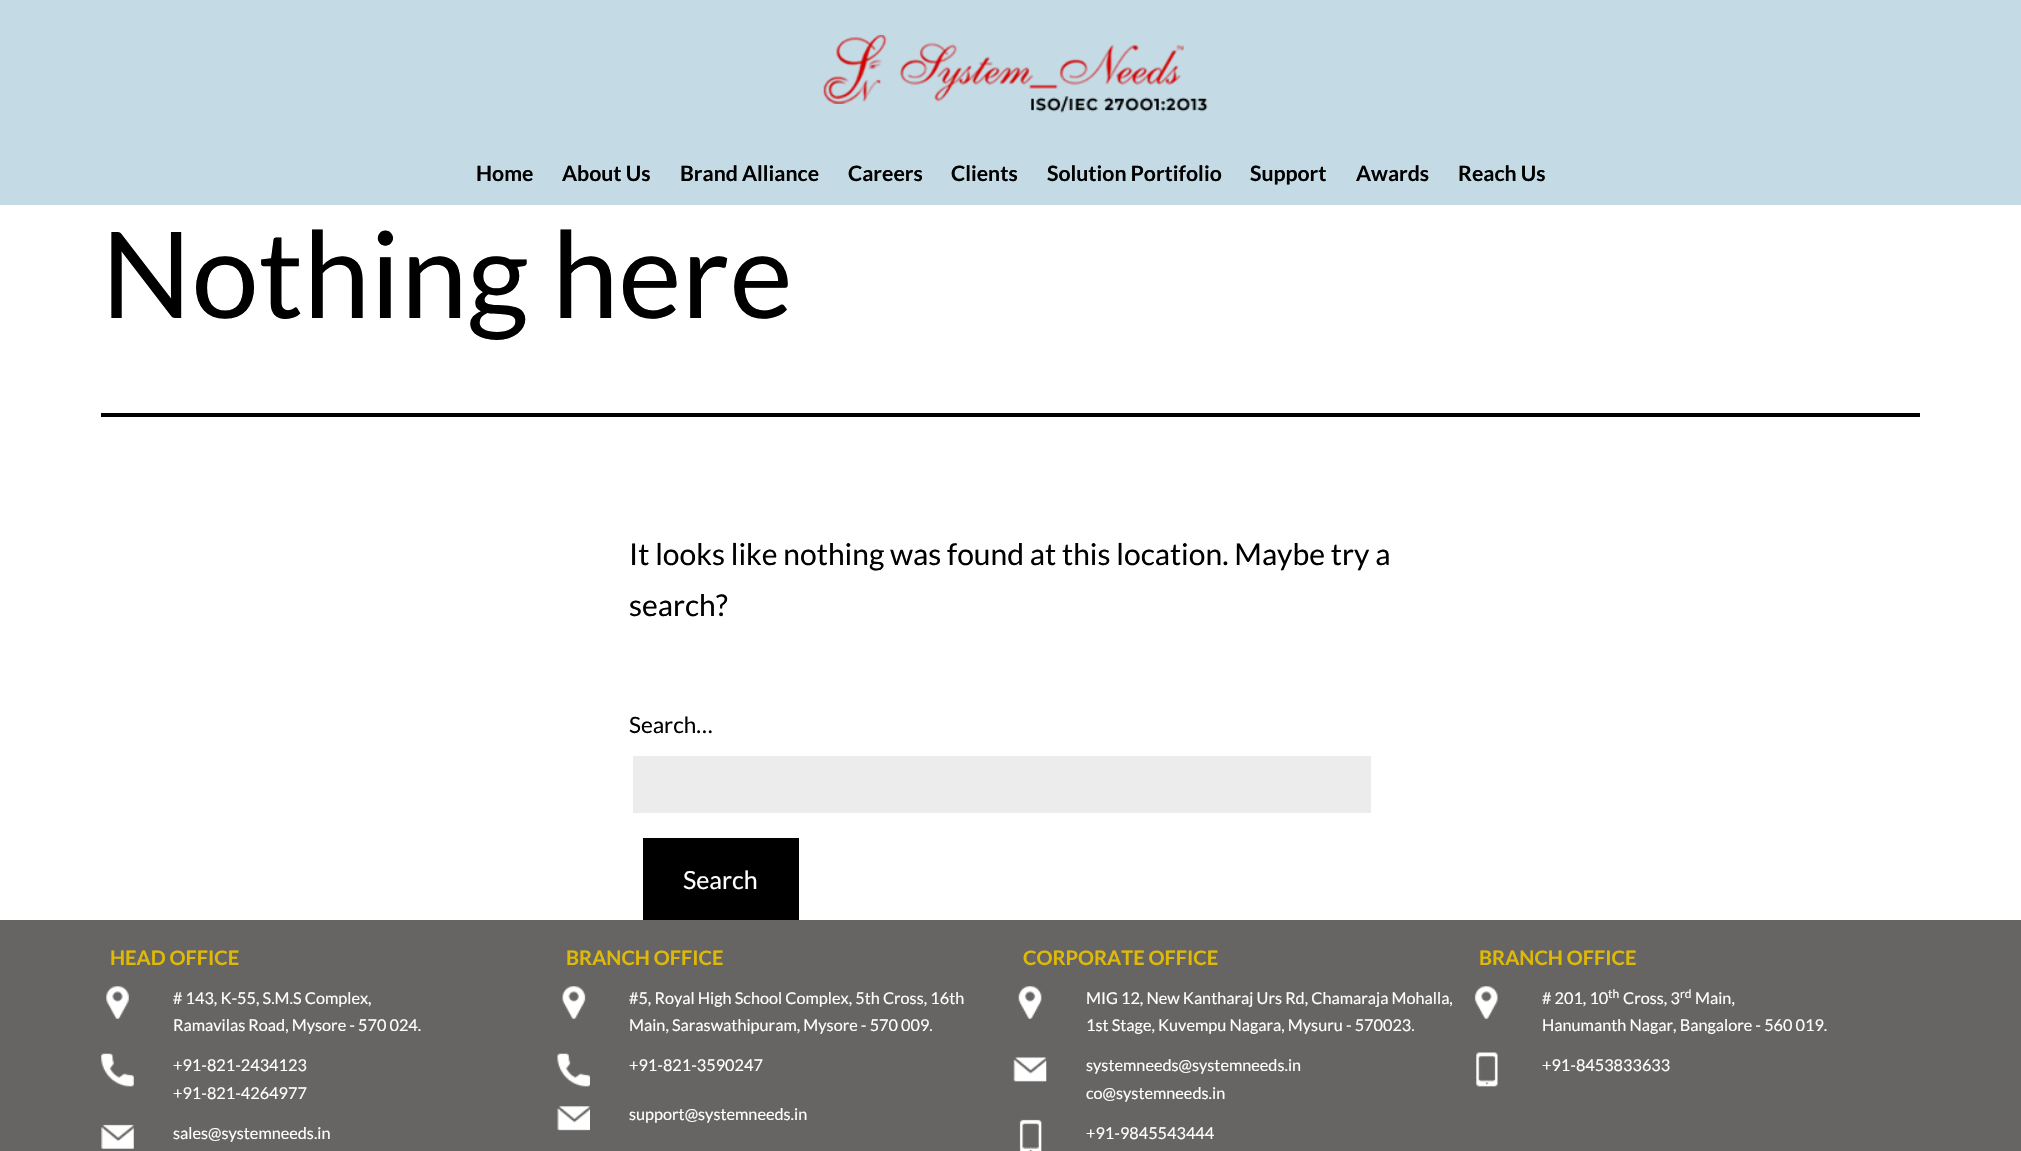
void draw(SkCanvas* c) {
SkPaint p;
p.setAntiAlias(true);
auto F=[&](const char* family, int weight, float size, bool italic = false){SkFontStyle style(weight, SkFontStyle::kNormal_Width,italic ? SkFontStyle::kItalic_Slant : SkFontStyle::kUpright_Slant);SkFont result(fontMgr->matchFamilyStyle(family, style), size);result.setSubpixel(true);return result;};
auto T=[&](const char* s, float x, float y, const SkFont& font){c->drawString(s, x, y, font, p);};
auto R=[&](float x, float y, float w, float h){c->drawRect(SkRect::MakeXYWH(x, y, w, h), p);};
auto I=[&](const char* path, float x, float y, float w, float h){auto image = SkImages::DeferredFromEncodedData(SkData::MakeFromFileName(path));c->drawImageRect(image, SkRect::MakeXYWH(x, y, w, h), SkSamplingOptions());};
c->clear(0xffffffff);
p.setColor(0xffc4dbe5);
R(0,0,2021,205);
I("1.png",823,34,385,79);
auto f1 = F("Lato",700,21.25);
p.setColor(0xff000000);
T("Home",476,181,f1);
T("About Us",562,181,f1);
T("Brand Alliance",680,181,f1);
T("Careers",848,181,f1);
T("Clients",951,181,f1);
T("Solution Portifolio",1047,181,f1);
T("Support",1250,181,f1);
T("Awards",1356,181,f1);
T("Reach Us",1458,181,f1);
R(101,413,1819,4);
auto f2 = F("Lato",400,120);
T("Nothing here",101,318,f2);
auto f3 = F("Lato",400,30);
T("It looks like nothing was found at this location. Maybe try a",629,565,f3);
T("search?",629,616,f3);
auto f4 = F("Lato",400,22.5);
T("Search…",629,733,f4);
p.setColor(0xffececec);
R(633,756,738,57);
p.setColor(0xff000000);
R(643,838,156,82);
auto f5 = F("Lato",400,25);
p.setColor(0xffffffff);
T("Search",683,889,f5);
p.setColor(0xff666563);
R(0,920,2021,231);
auto f6 = F("Lato",700,20);
p.setColor(0xffdfb908);
T("HEAD OFFICE",110,965,f6);
I("2.png",106,986,23,33);
auto f7 = F("Lato",400,16.25);
p.setColor(0xffffffff);
T("# 143, K-55, S.M.S Complex,",173,1004,f7);
T("Ramavilas Road, Mysore - 570 024.",173,1031,f7);
I("3.png",101,1053,33,34);
T("+91-821-2434123",173,1071,f7);
T("+91-821-4264977",173,1099,f7);
I("4.png",101,1124,33,25);
T("sales@systemneeds.in",173,1139,f7);
p.setColor(0xffdfb908);
T("BRANCH OFFICE",566,965,f6);
I("5.png",562,986,24,33);
p.setColor(0xffffffff);
T("#5, Royal High School Complex, 5th Cross, 16th",629,1004,f7);
T("Main, Saraswathipuram, Mysore - 570 009.",629,1031,f7);
I("6.png",557,1053,33,34);
T("+91-821-3590247",629,1071,f7);
I("7.png",557,1106,33,25);
T("support@systemneeds.in",629,1120,f7);
p.setColor(0xffdfb908);
T("CORPORATE OFFICE",1023,965,f6);
I("8.png",1018,986,24,33);
p.setColor(0xffffffff);
T("MIG 12, New Kantharaj Urs Rd, Chamaraja Mohalla,",1086,1004,f7);
T("1st Stage, Kuvempu Nagara, Mysuru - 570023.",1086,1031,f7);
I("9.png",1013,1057,34,25);
T("systemneeds@systemneeds.in",1086,1071,f7);
T("co@systemneeds.in",1086,1099,f7);
I("10.png",1019,1119,23,32);
T("+91-9845543444",1086,1139,f7);
p.setColor(0xffdfb908);
T("BRANCH OFFICE",1479,965,f6);
I("11.png",1474,986,24,33);
p.setColor(0xffffffff);
T("# 201, 10",1542,1004,f7);
auto f8 = F("Lato",400,12);
T("th",1608,998,f8);
T("Cross, 3",1623,1004,f7);
T("rd",1680,998,f8);
T("Main,",1695,1004,f7);
T("Hanumanth Nagar, Bangalore - 560 019.",1542,1031,f7);
I("12.png",1476,1052,22,35);
T("+91-8453833633",1542,1071,f7);
}
